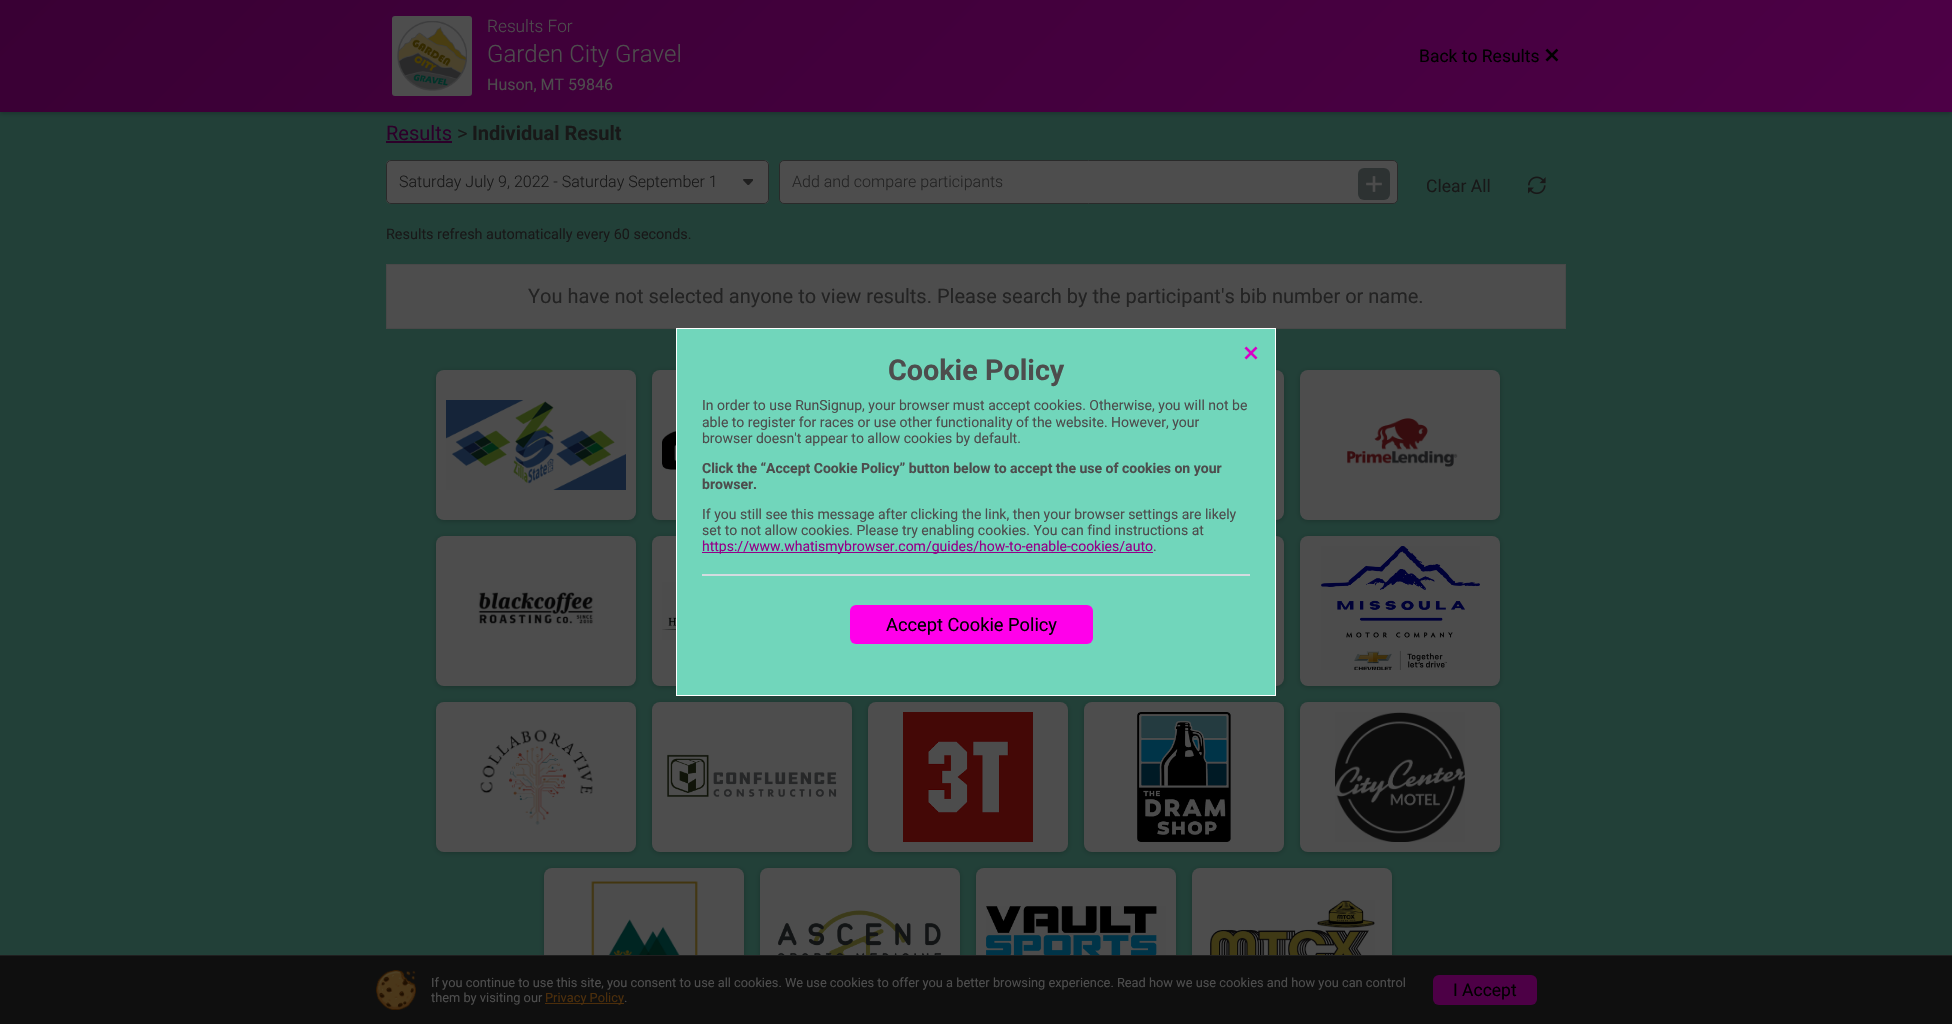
void draw(SkCanvas* c) {
SkPaint p;
p.setAntiAlias(true);
auto F=[&](const char* family, int weight, float size, bool italic = false){SkFontStyle style(weight, SkFontStyle::kNormal_Width,italic ? SkFontStyle::kItalic_Slant : SkFontStyle::kUpright_Slant);SkFont result(fontMgr->matchFamilyStyle(family, style), size);result.setSubpixel(true);return result;};
auto T=[&](const char* s, float x, float y, const SkFont& font){c->drawString(s, x, y, font, p);};
auto R=[&](float x, float y, float w, float h){c->drawRect(SkRect::MakeXYWH(x, y, w, h), p);};
auto Q=[&](float x, float y, float w, float h, float radius){c->drawRoundRect(SkRect::MakeXYWH(x, y, w, h), radius, radius, p);};
auto I=[&](const char* path, float x, float y, float w, float h){auto image = SkImages::DeferredFromEncodedData(SkData::MakeFromFileName(path));c->drawImageRect(image, SkRect::MakeXYWH(x, y, w, h), SkSamplingOptions());};
c->clear(0xff224038);
p.setColor(0x2e000000);
p.setMaskFilter(SkMaskFilter::MakeBlur(kNormal_SkBlurStyle, 2));
c->drawRect(SkRect::MakeXYWH(0,2,1952,112),p);
p.setMaskFilter(nullptr);
{
const SkColor colors[] = {0xff4d0046,0xff390034};
const float stops[] = {0,1};
const SkPoint ends[] = {{1492,572}, {460,-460}};
p.setShader(SkGradientShader::MakeLinear(ends, colors, stops, 2, SkTileMode::kClamp));
p.setAlpha(255);
}
R(0,0,1952,112);
p.setShader(nullptr);
p.setColor(0xff4d4d4d);
Q(392,16,80,80,3);
I("1.png",397,21,70,70);
auto f1 = F("Roboto",300,17.25);
T("Results For",487,32,f1);
auto f2 = F("Roboto",300,24);
T("Garden City Gravel",487,62,f2);
auto f3 = F("Roboto",400,16);
T("Huson, MT 59846",487,90,f3);
auto f4 = F("Roboto",400,17.5);
p.setColor(0xff000000);
T("Back to Results",1419,62,f4);
I("2.png",1545,48,14,14);
auto f5 = F("Roboto",400,20);
p.setColor(0xff2c0029);
T("Results",386,140,f5);
R(386,141,66,2);
p.setColor(0xff181818);
T(">",457,140,f5);
auto f6 = F("Roboto",700,20);
T("Individual Result",472,140,f6);
p.setColor(0xff4d4d4d);
Q(386,160,383,44,5);
I("3.png",743,179,10,6);
p.setStroke(true);
p.setStrokeWidth(1);
p.setColor(0xff2a2a2a);
c->drawRoundRect(SkRect::MakeXYWH(386.5,160.5,382,43),4.5,4.5,p);
auto f7 = F("Roboto",300,16);
p.setStroke(false);
p.setColor(0xff181818);
T("Saturday July 9, 2022 - Saturday September 1",399,187,f7);
p.setColor(0xff4d4d4d);
c->drawRoundRect(SkRect::MakeXYWH(779.5,160.5,618,43),4.5,4.5,p);
p.setStroke(true);
p.setColor(0xff2a2a2a);
c->drawRoundRect(SkRect::MakeXYWH(779.5,160.5,618,43),4.5,4.5,p);
p.setStroke(false);
p.setColor(0xff232323);
T("Add and compare participants",792,187,f7);
p.setColor(0xff2d3232);
Q(1358,168,32,32,6);
I("4.png",1366,176,16,16);
p.setColor(0xff181818);
T("Clear All",1426,192,f4);
I("5.png",1528,176,18,19);
auto f8 = F("Roboto",400,14.4);
T("Results refresh automatically every 60 seconds.",386,239,f8);
p.setColor(0xff4d4d4d);
c->drawRect(SkRect::MakeXYWH(386.5,264.5,1179,64),p);
p.setStroke(true);
p.setColor(0xff484848);
c->drawRect(SkRect::MakeXYWH(386.5,264.5,1179,64),p);
p.setStroke(false);
p.setColor(0xff232323);
T("You have not selected anyone to view results. Please search by the participant's bib number or name.",528,303,f5);
p.setColor(0x33000000);
p.setMaskFilter(SkMaskFilter::MakeBlur(kNormal_SkBlurStyle, 2.5));
c->drawRoundRect(SkRect::MakeXYWH(436,371,200,150),8,8,p);
p.setMaskFilter(nullptr);
p.setColor(0xff4d4d4d);
Q(436,370,200,150,8);
I("6.png",446,400,180,90);
p.setColor(0x33000000);
p.setMaskFilter(SkMaskFilter::MakeBlur(kNormal_SkBlurStyle, 2.5));
c->drawRoundRect(SkRect::MakeXYWH(652,371,200,150),8,8,p);
p.setMaskFilter(nullptr);
p.setColor(0xff4d4d4d);
Q(652,370,200,150,8);
I("7.png",662,431,14,39);
p.setColor(0x33000000);
p.setMaskFilter(SkMaskFilter::MakeBlur(kNormal_SkBlurStyle, 2.5));
c->drawRoundRect(SkRect::MakeXYWH(1084,371,200,150),8,8,p);
p.setMaskFilter(nullptr);
p.setColor(0xff4d4d4d);
Q(1084,370,200,150,8);
p.setColor(0x33000000);
p.setMaskFilter(SkMaskFilter::MakeBlur(kNormal_SkBlurStyle, 2.5));
c->drawRoundRect(SkRect::MakeXYWH(1300,371,200,150),8,8,p);
p.setMaskFilter(nullptr);
p.setColor(0xff4d4d4d);
Q(1300,370,200,150,8);
I("8.png",1347,418,111,49);
p.setColor(0x33000000);
p.setMaskFilter(SkMaskFilter::MakeBlur(kNormal_SkBlurStyle, 2.5));
c->drawRoundRect(SkRect::MakeXYWH(436,537,200,150),8,8,p);
p.setMaskFilter(nullptr);
p.setColor(0xff4d4d4d);
Q(436,536,200,150,8);
I("9.png",478,592,116,32);
p.setColor(0x33000000);
p.setMaskFilter(SkMaskFilter::MakeBlur(kNormal_SkBlurStyle, 2.5));
c->drawRoundRect(SkRect::MakeXYWH(652,537,200,150),8,8,p);
p.setMaskFilter(nullptr);
p.setColor(0xff4d4d4d);
Q(652,536,200,150,8);
I("10.png",662,582,14,58);
p.setColor(0x33000000);
p.setMaskFilter(SkMaskFilter::MakeBlur(kNormal_SkBlurStyle, 2.5));
c->drawRoundRect(SkRect::MakeXYWH(1084,537,200,150),8,8,p);
p.setMaskFilter(nullptr);
p.setColor(0xff4d4d4d);
Q(1084,536,200,150,8);
p.setColor(0x33000000);
p.setMaskFilter(SkMaskFilter::MakeBlur(kNormal_SkBlurStyle, 2.5));
c->drawRoundRect(SkRect::MakeXYWH(1300,537,200,150),8,8,p);
p.setMaskFilter(nullptr);
p.setColor(0xff4d4d4d);
Q(1300,536,200,150,8);
I("11.png",1321,546,159,124);
p.setColor(0x33000000);
p.setMaskFilter(SkMaskFilter::MakeBlur(kNormal_SkBlurStyle, 2.5));
c->drawRoundRect(SkRect::MakeXYWH(436,703,200,150),8,8,p);
p.setMaskFilter(nullptr);
p.setColor(0xff4d4d4d);
Q(436,702,200,150,8);
I("12.png",480,729,113,96);
p.setColor(0x33000000);
p.setMaskFilter(SkMaskFilter::MakeBlur(kNormal_SkBlurStyle, 2.5));
c->drawRoundRect(SkRect::MakeXYWH(652,703,200,150),8,8,p);
p.setMaskFilter(nullptr);
p.setColor(0xff4d4d4d);
Q(652,702,200,150,8);
I("13.png",667,754,170,43);
p.setColor(0x33000000);
p.setMaskFilter(SkMaskFilter::MakeBlur(kNormal_SkBlurStyle, 2.5));
c->drawRoundRect(SkRect::MakeXYWH(868,703,200,150),8,8,p);
p.setMaskFilter(nullptr);
p.setColor(0xff4d4d4d);
Q(868,702,200,150,8);
I("14.png",903,712,130,130);
p.setColor(0x33000000);
p.setMaskFilter(SkMaskFilter::MakeBlur(kNormal_SkBlurStyle, 2.5));
c->drawRoundRect(SkRect::MakeXYWH(1084,703,200,150),8,8,p);
p.setMaskFilter(nullptr);
p.setColor(0xff4d4d4d);
Q(1084,702,200,150,8);
I("15.png",1137,712,94,130);
p.setColor(0x33000000);
p.setMaskFilter(SkMaskFilter::MakeBlur(kNormal_SkBlurStyle, 2.5));
c->drawRoundRect(SkRect::MakeXYWH(1300,703,200,150),8,8,p);
p.setMaskFilter(nullptr);
p.setColor(0xff4d4d4d);
Q(1300,702,200,150,8);
I("16.png",1335,712,130,130);
p.setColor(0x33000000);
p.setMaskFilter(SkMaskFilter::MakeBlur(kNormal_SkBlurStyle, 2.5));
c->drawRoundRect(SkRect::MakeXYWH(544,869,200,150),8,8,p);
p.setMaskFilter(nullptr);
p.setColor(0xff4d4d4d);
Q(544,868,200,150,8);
I("17.png",591,881,107,74);
p.setColor(0x33000000);
p.setMaskFilter(SkMaskFilter::MakeBlur(kNormal_SkBlurStyle, 2.5));
c->drawRoundRect(SkRect::MakeXYWH(760,869,200,150),8,8,p);
p.setMaskFilter(nullptr);
p.setColor(0xff4d4d4d);
Q(760,868,200,150,8);
I("18.png",778,910,164,45);
p.setColor(0x33000000);
p.setMaskFilter(SkMaskFilter::MakeBlur(kNormal_SkBlurStyle, 2.5));
c->drawRoundRect(SkRect::MakeXYWH(976,869,200,150),8,8,p);
p.setMaskFilter(nullptr);
p.setColor(0xff4d4d4d);
Q(976,868,200,150,8);
I("19.png",986,906,180,49);
p.setColor(0x33000000);
p.setMaskFilter(SkMaskFilter::MakeBlur(kNormal_SkBlurStyle, 2.5));
c->drawRoundRect(SkRect::MakeXYWH(1192,869,200,150),8,8,p);
p.setMaskFilter(nullptr);
p.setColor(0xff4d4d4d);
Q(1192,868,200,150,8);
I("20.png",1210,900,165,55);
p.setStroke(true);
p.setColor(0xffffffff);
c->drawRect(SkRect::MakeXYWH(676.5,328.5,599,367),p);
p.setStroke(false);
p.setColor(0xff71d6bb);
R(677,329,598,366);
I("21.png",1244,346,14,14);
auto f9 = F("Roboto",700,28.75);
p.setColor(0xff4d4d4d);
T("Cookie Policy",888,380,f9);
auto f10 = F("Roboto",400,14);
T("In order to use RunSignup, your browser must accept cookies. Otherwise, you will not be",702,410,f10);
T("able to register for races or use other functionality of the website. However, your",702,427,f10);
T("browser doesn't appear to allow cookies by default.",702,443,f10);
auto f11 = F("Roboto",700,14);
T("Click the “Accept Cookie Policy” button below to accept the use of cookies on your",702,473,f11);
T("browser.",702,489,f11);
T("If you still see this message after clicking the link, then your browser settings are likely",702,519,f10);
T("set to not allow cookies. Please try enabling cookies. You can find instructions at",702,535,f10);
p.setColor(0xff940088);
R(702,552,451,1);
T("https://www.whatismybrowser.com/guides/how-to-enable-cookies/auto",702,551,f10);
p.setColor(0xff4d4d4d);
T(".",1153,551,f10);
p.setColor(0xffd3dbdf);
R(702,574,548,2);
p.setColor(0xffff00ea);
Q(850,605,243,39,6);
auto f12 = F("Roboto",400,18.25);
p.setColor(0xff000000);
T("Accept Cookie Policy",886,631,f12);
p.setColor(0xff0f0f0f);
R(0,956,1952,68);
p.setColor(0xff1f1f1f);
R(0,955,1952,1);
I("22.png",376,970,40,40);
auto f13 = F("Roboto",400,12.8);
p.setColor(0xff4d4d4d);
T("If you continue to use this site, you consent to use all cookies. We use cookies to offer you a better browsing experience. Read how we use cookies and how you can control",431,987,f13);
T("them by visiting our",431,1002,f13);
p.setColor(0xff4c2e0b);
R(545,1003,79,1);
T("Privacy Policy",545,1002,f13);
p.setColor(0xff4d4d4d);
T(".",624,1002,f13);
p.setColor(0xff4d0046);
Q(1433,975,104,30,6);
p.setColor(0xff000000);
T("I Accept",1453,996,f4);
}
